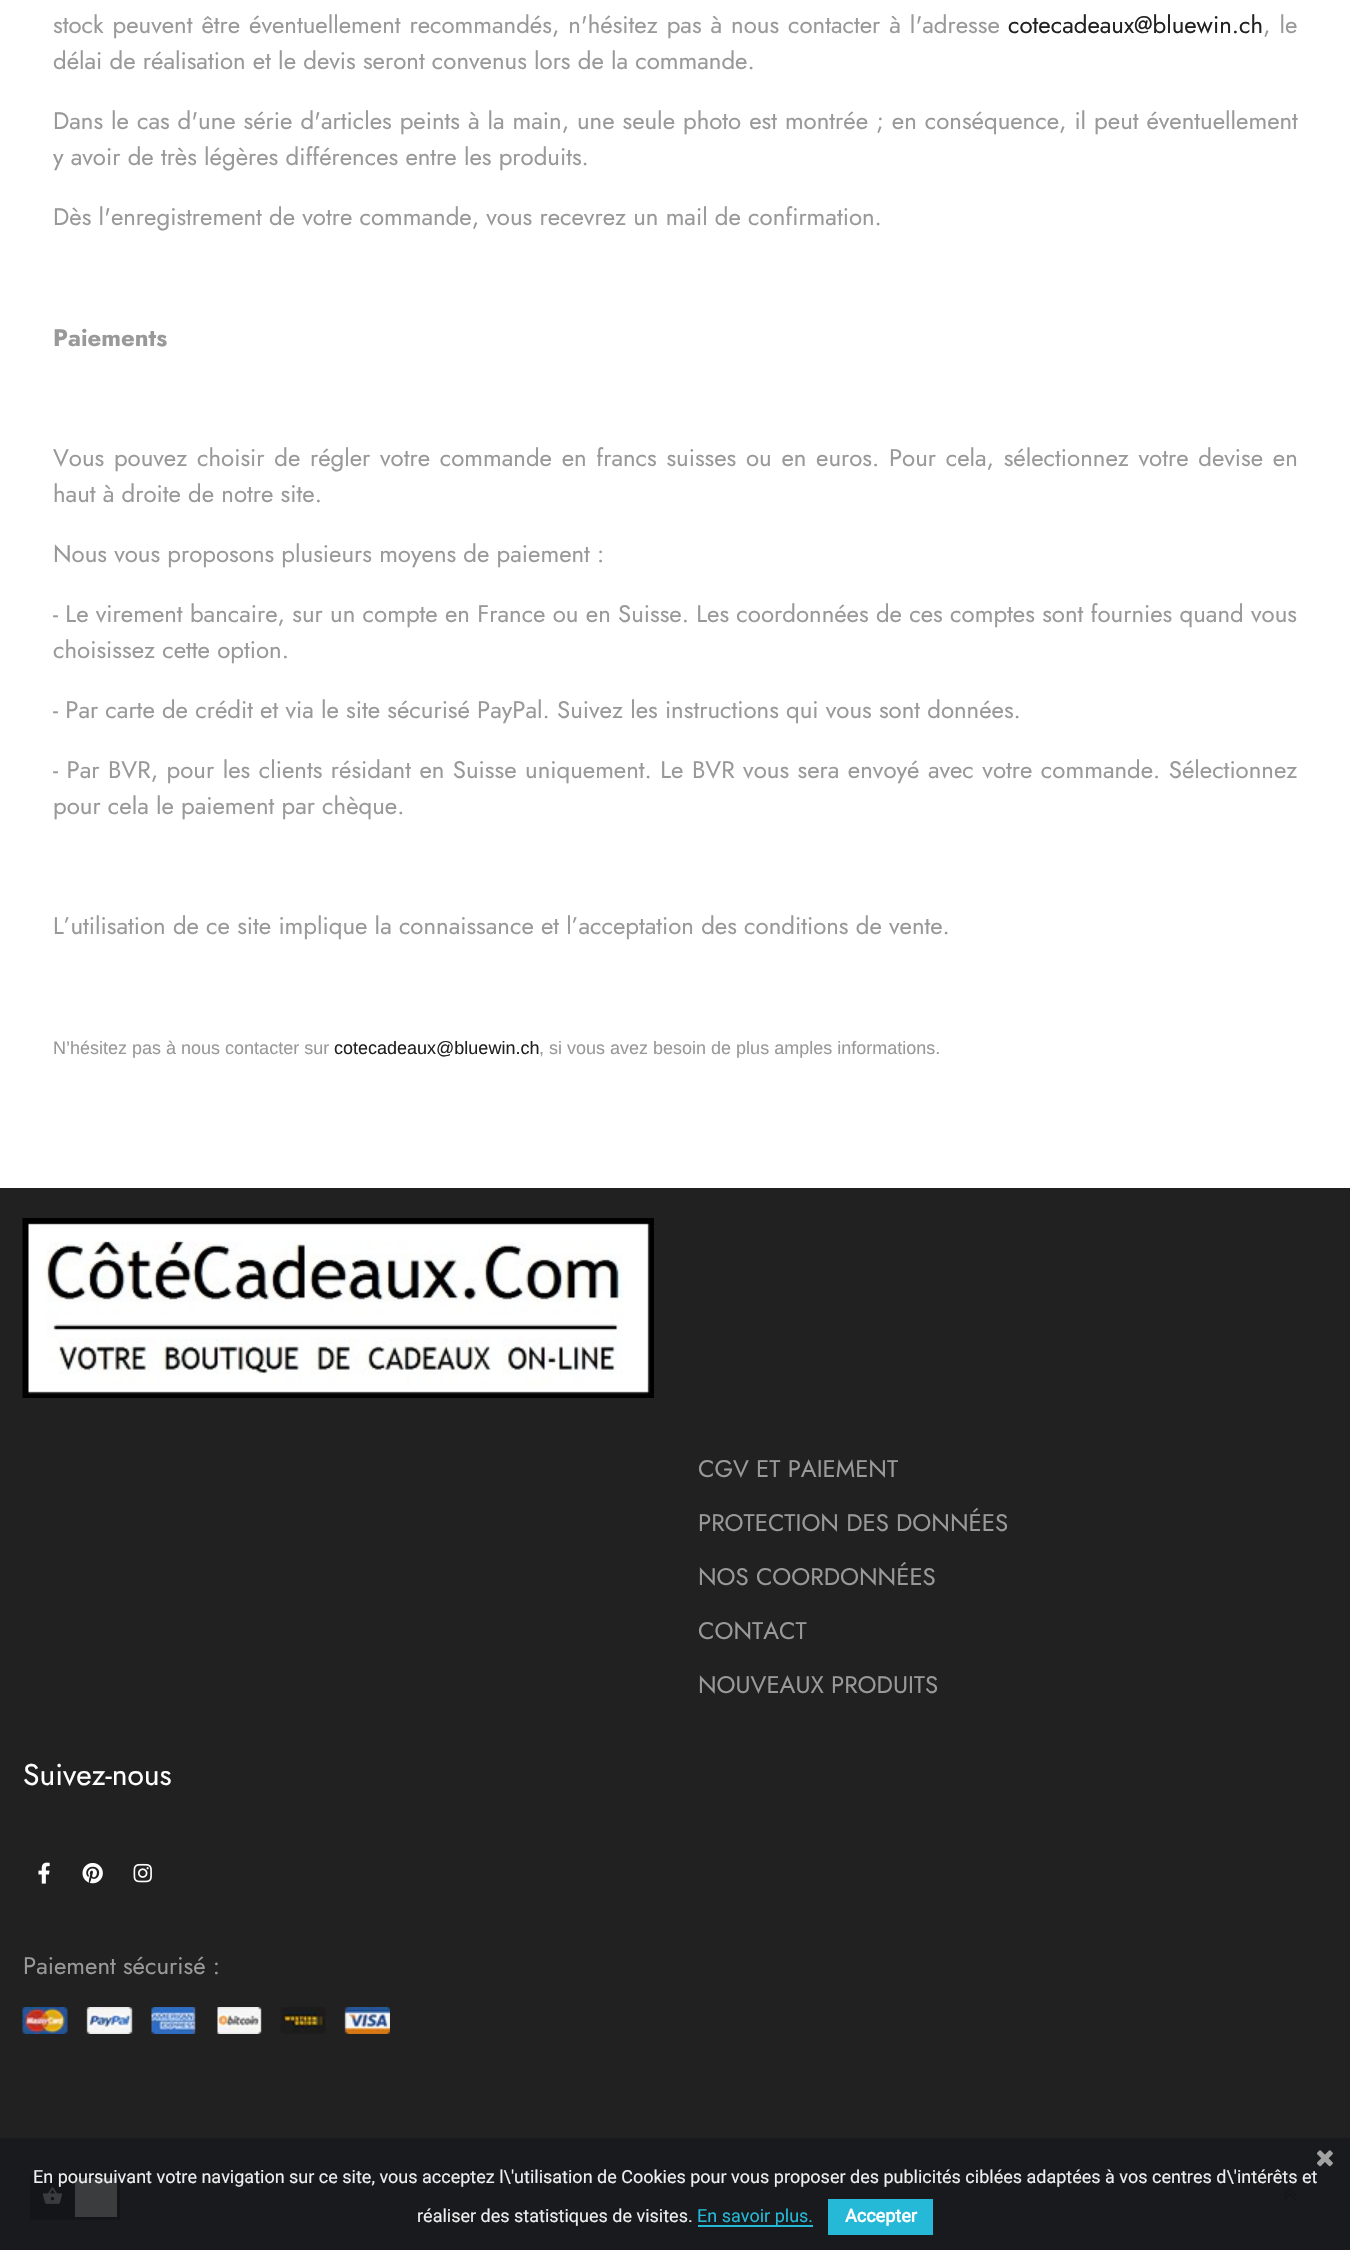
void draw(SkCanvas* c) {
SkPaint p;
p.setAntiAlias(true);
auto F=[&](const char* family, int weight, float size, bool italic = false){SkFontStyle style(weight, SkFontStyle::kNormal_Width,italic ? SkFontStyle::kItalic_Slant : SkFontStyle::kUpright_Slant);SkFont result(fontMgr->matchFamilyStyle(family, style), size);result.setSubpixel(true);return result;};
auto T=[&](const char* s, float x, float y, const SkFont& font){c->drawString(s, x, y, font, p);};
auto L=[&](const char* s, float x, float y, const SkFont& font, const SkPaint& ink, float letter, float word){std::vector<SkGlyphID> glyphs(font.countText(s, strlen(s), SkTextEncoding::kUTF8));std::vector<float> xs(glyphs.size());font.textToGlyphs(s, strlen(s), SkTextEncoding::kUTF8, glyphs);font.getXPos(glyphs, xs, x);float extra = 0;for (size_t i = 0; i < glyphs.size(); i++) {xs[i] += extra;extra += letter + word * (glyphs[i] == font.unicharToGlyph(' '));}c->drawTextBlob(SkTextBlob::MakeFromPosHGlyphs(glyphs, xs, y, font), 0, 0, ink);};
auto R=[&](float x, float y, float w, float h){c->drawRect(SkRect::MakeXYWH(x, y, w, h), p);};
auto I=[&](const char* path, float x, float y, float w, float h){auto image = SkImages::DeferredFromEncodedData(SkData::MakeFromFileName(path));c->drawImageRect(image, SkRect::MakeXYWH(x, y, w, h), SkSamplingOptions());};
c->clear(0xffffffff);
auto f1 = F("Jost",400,24);
p.setColor(0xff999999);
L("stock peuvent être éventuellement recommandés, n'hésitez pas à nous contacter à l'adresse",53,33,f1,p,0,1.75);
p.setColor(0xff212121);
T("cotecadeaux@bluewin.ch",1008,33,f1);
p.setColor(0xff999999);
L(", le",1263,33,f1,p,0,2);
T("délai de réalisation et le devis seront convenus lors de la commande.",53,69,f1);
L("Dans le cas d'une série d'articles peints à la main, une seule photo est montrée ; en conséquence, il peut éventuellement",53,129,f1,p,0,.75);
T("y avoir de très légères différences entre les produits.",53,165,f1);
T("Dès l'enregistrement de votre commande, vous recevrez un mail de confirmation.",53,225,f1);
auto f2 = F("Jost",700,24);
T("Paiements",53,346,f2);
L("Vous pouvez choisir de régler votre commande en francs suisses ou en euros. Pour cela, sélectionnez votre devise en",53,466,f1,p,0,2.5);
T("haut à droite de notre site.",53,502,f1);
T("Nous vous proposons plusieurs moyens de paiement :",53,562,f1);
L("- Le virement bancaire, sur un compte en France ou en Suisse. Les coordonnées de ces comptes sont fournies quand vous",53,622,f1,p,0,.1);
T("choisissez cette option.",53,658,f1);
T("- Par carte de crédit et via le site sécurisé PayPal. Suivez les instructions qui vous sont données.",53,718,f1);
L("- Par BVR, pour les clients résidant en Suisse uniquement. Le BVR vous sera envoyé avec votre commande. Sélectionnez",53,778,f1,p,0,1.3);
T("pour cela le paiement par chèque.",53,814,f1);
T("L’utilisation de ce site implique la connaissance et l’acceptation des conditions de vente.",53,934,f1);
auto f3 = F("Liberation Sans",400,18);
T("N’hésitez pas à nous contacter sur",53,1054,f3);
p.setColor(0xff212121);
T("cotecadeaux@bluewin.ch",334,1054,f3);
p.setColor(0xff999999);
T(", si vous avez besoin de plus amples informations.",539,1054,f3);
p.setColor(0xff212121);
R(0,1188,1350,950);
p.setColor(0xff191a1d);
R(0,2138,1350,112);
I("1.png",22,1218,632,180);
p.setColor(0xff999999);
T("CGV ET PAIEMENT",698,1477,f1);
T("PROTECTION DES DONNÉES",698,1531,f1);
T("NOS COORDONNÉES",698,1585,f1);
T("CONTACT",698,1639,f1);
T("NOUVEAUX PRODUITS",698,1693,f1);
auto f4 = F("Jost",400,30);
p.setColor(0xffffffff);
T("Suivez-nous",23,1785,f4);
I("2.png",38,1862,12,22);
I("3.png",82,1863,21,21);
I("4.png",133,1863,19,20);
p.setColor(0xff999999);
T("Paiement sécurisé :",23,1974,f1);
I("5.png",22,2007,368,27);
I("6.png",1283,2188,13,12);
I("7.png",1317,2150,16,17);
p.setColor(0xff141518);
R(30,2175,90,45);
p.setColor(0xff3a3c3e);
R(75,2178,42,39);
auto f5 = F("Roboto",400,18);
p.setColor(0xffefefef);
T("En poursuivant votre navigation sur ce site, vous acceptez l\\'utilisation de Cookies pour vous proposer des publicités ciblées adaptées à vos centres d\\'intérêts et",33,2183,f5);
T("réaliser des statistiques de visites.",417,2222,f5);
p.setColor(0xff25b9d7);
R(698,2225,115,2);
T("En savoir plus.",697,2222,f5);
R(828,2199,105,36);
auto f6 = F("Roboto",700,18);
p.setColor(0xffffffff);
T("Accepter",845,2222,f6);
I("8.png",42,2187,21,17);
}
